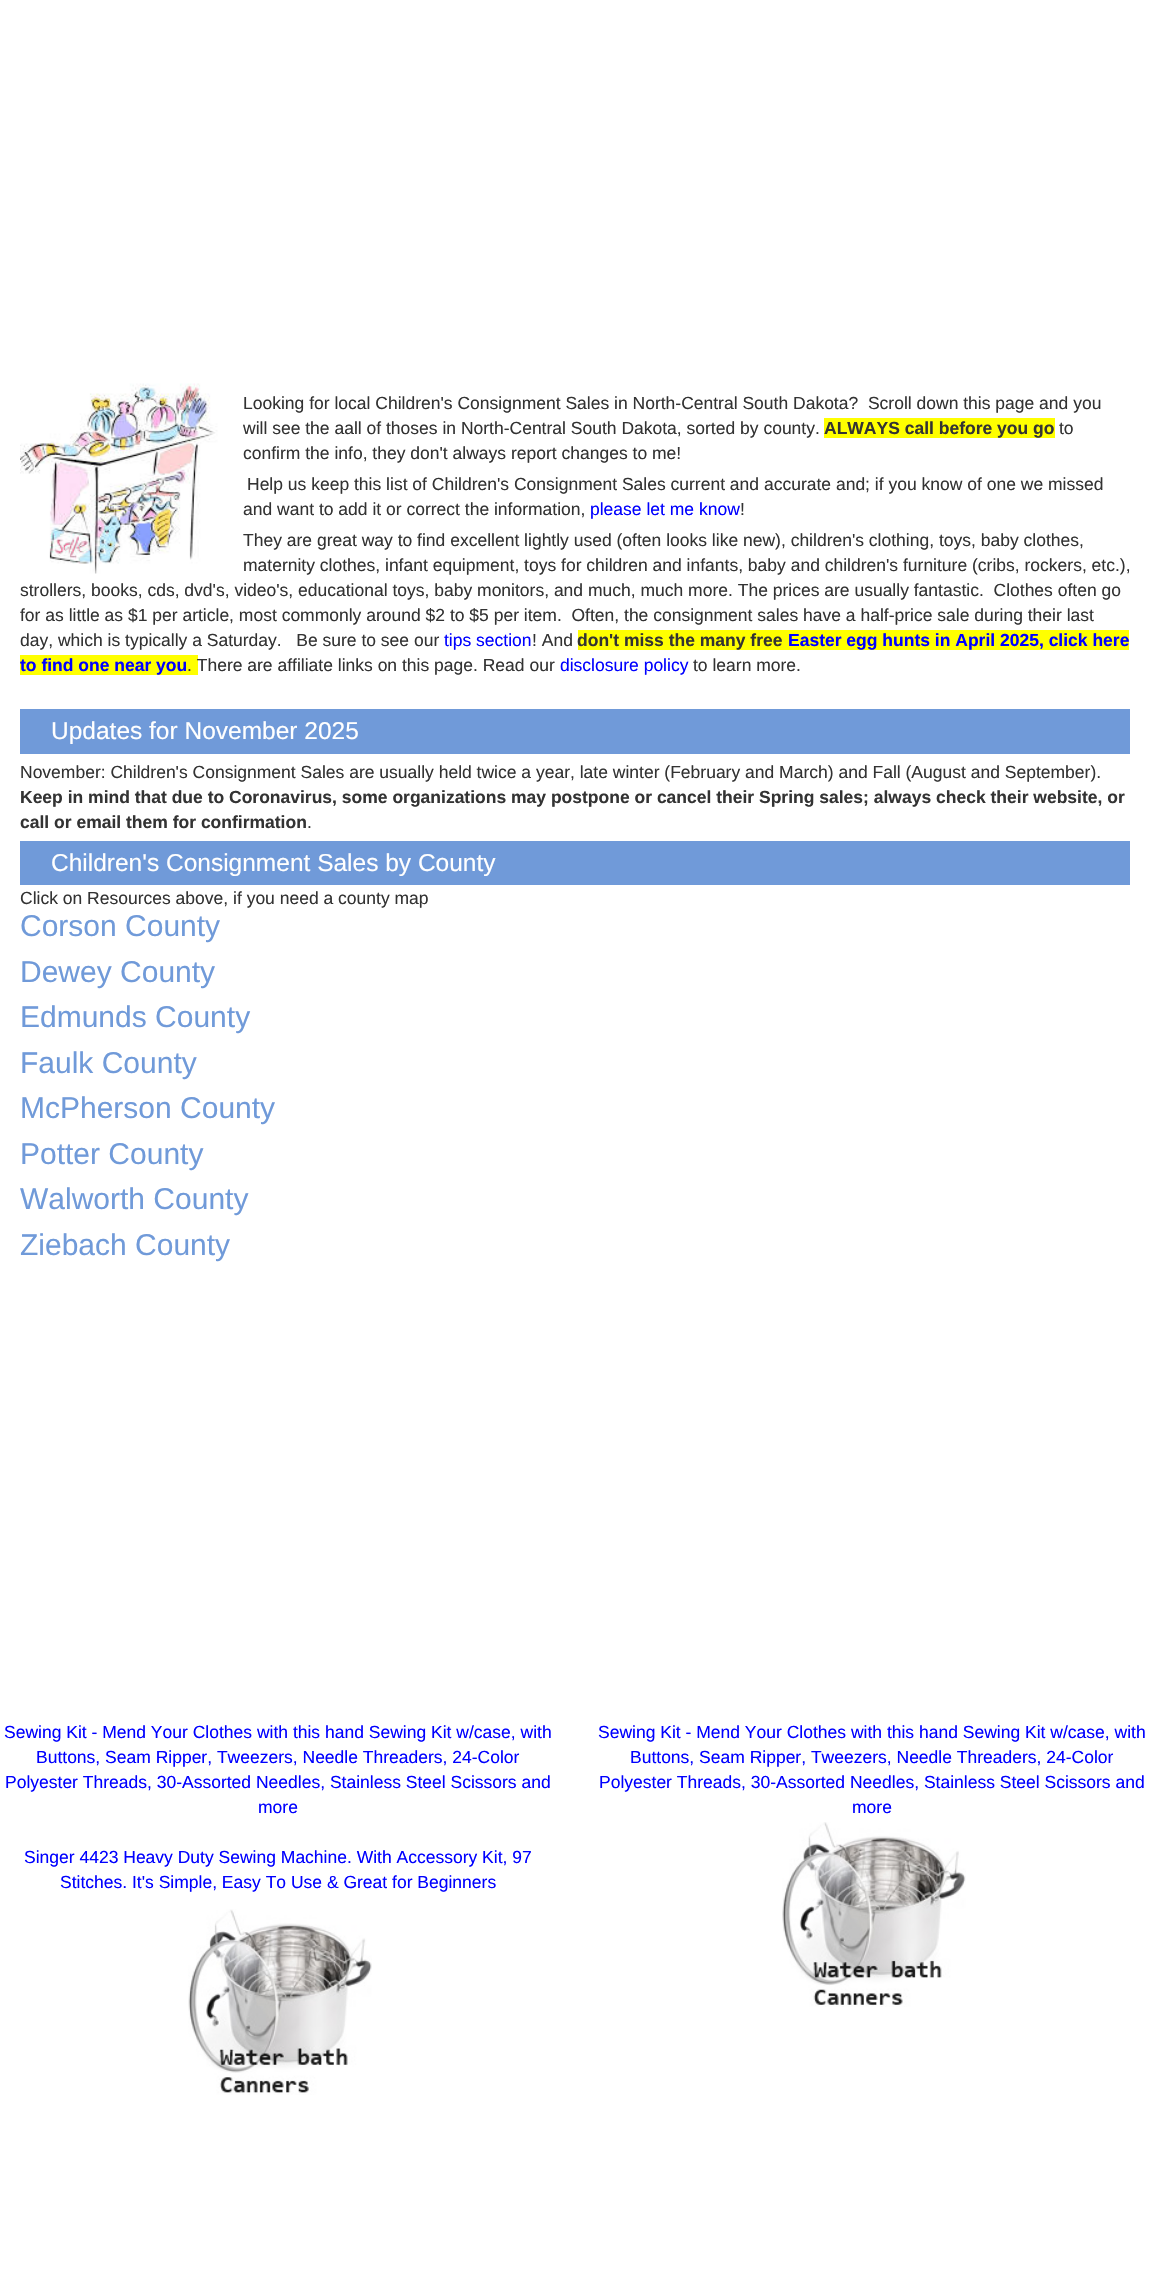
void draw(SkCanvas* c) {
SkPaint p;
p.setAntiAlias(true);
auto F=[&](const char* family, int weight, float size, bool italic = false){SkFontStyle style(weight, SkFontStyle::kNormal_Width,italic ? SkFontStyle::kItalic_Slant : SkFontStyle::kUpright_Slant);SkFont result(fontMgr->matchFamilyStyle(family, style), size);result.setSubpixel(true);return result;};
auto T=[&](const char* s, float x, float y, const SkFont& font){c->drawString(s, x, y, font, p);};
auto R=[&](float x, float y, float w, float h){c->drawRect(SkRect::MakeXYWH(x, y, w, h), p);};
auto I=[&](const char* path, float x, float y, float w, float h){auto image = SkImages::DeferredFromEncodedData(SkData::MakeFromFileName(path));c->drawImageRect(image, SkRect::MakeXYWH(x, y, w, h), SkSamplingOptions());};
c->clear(0xffffffff);
I("1.png",20,383,198,191);
auto f1 = F("Liberation Sans",400,17.5);
p.setColor(0xff333333);
T("Looking for local Children's Consignment Sales in North-Central South Dakota?  Scroll down this page and you",243,409,f1);
T("will see the aall of thoses in North-Central South Dakota, sorted by county.",243,434,f1);
p.setColor(0xffffff00);
R(824,418,231,20);
auto f2 = F("Liberation Sans",700,17.5);
p.setColor(0xff333333);
T("ALWAYS call before you go",824,434,f2);
T("to",1059,434,f1);
T("confirm the info, they don't always report changes to me!",243,459,f1);
T("Help us keep this list of Children's Consignment Sales current and accurate and; if you know of one we missed",247,490,f1);
T("and want to add it or correct the information,",243,515,f1);
p.setColor(0xff0000ff);
T("please let me know",590,515,f1);
p.setColor(0xff333333);
T("!",740,515,f1);
T("They are great way to find excellent lightly used (often looks like new), children's clothing, toys, baby clothes,",243,546,f1);
T("maternity clothes, infant equipment, toys for children and infants, baby and children's furniture (cribs, rockers, etc.),",243,571,f1);
T("strollers, books, cds, dvd's, video's, educational toys, baby monitors, and much, much more. The prices are usually fantastic.  Clothes often go",20,596,f1);
T("for as little as $1 per article, most commonly around $2 to $5 per item.  Often, the consignment sales have a half-price sale during their last",20,621,f1);
T("day, which is typically a Saturday.   Be sure to see our",20,646,f1);
p.setColor(0xff0000ff);
T("tips section",444,646,f1);
p.setColor(0xff333333);
T("! And",532,646,f1);
p.setColor(0xffffff00);
R(578,630,551,20);
p.setColor(0xff333333);
T("don't miss the many free",577,646,f2);
p.setColor(0xff0000ff);
T("Easter egg hunts in April 2025, click here",788,646,f2);
p.setColor(0xffffff00);
R(20,655,178,20);
p.setColor(0xff0000ff);
T("to find one near you",20,671,f2);
p.setColor(0xff333333);
T(". There are affiliate links on this page. Read our",187,671,f1);
p.setColor(0xff0000ff);
T("disclosure policy",560,671,f1);
p.setColor(0xff333333);
T("to learn more.",693,671,f1);
p.setColor(0xff709ad9);
R(20,709,1110,45);
auto f3 = F("Liberation Sans",400,24.5);
p.setColor(0xffffffff);
T("Updates for November 2025",51,739,f3);
p.setColor(0xff333333);
T("November: Children's Consignment Sales are usually held twice a year, late winter (February and March) and Fall (August and September).",20,778,f1);
T("Keep in mind that due to Coronavirus, some organizations may postpone or cancel their Spring sales; always check their website, or",20,803,f2);
T("call or email them for confirmation",20,828,f2);
T(".",307,828,f1);
p.setColor(0xff709ad9);
R(20,841,1110,44);
p.setColor(0xffffffff);
T("Children's Consignment Sales by County",51,871,f3);
p.setColor(0xff333333);
T("Click on Resources above, if you need a county map",20,904,f1);
auto f4 = F("Liberation Sans",400,30);
p.setColor(0xff709ad9);
T("Corson County",20,936,f4);
T("Dewey County",20,982,f4);
T("Edmunds County",20,1027,f4);
T("Faulk County",20,1073,f4);
T("McPherson County",20,1118,f4);
T("Potter County",20,1164,f4);
T("Walworth County",20,1209,f4);
T("Ziebach County",20,1255,f4);
p.setColor(0xff0000ff);
T("Sewing Kit - Mend Your Clothes with this hand Sewing Kit w/case, with",4,1738,f1);
T("Buttons, Seam Ripper, Tweezers, Needle Threaders, 24-Color",36,1763,f1);
T("Polyester Threads, 30-Assorted Needles, Stainless Steel Scissors and",5,1788,f1);
T("more",258,1813,f1);
T("Singer 4423 Heavy Duty Sewing Machine. With Accessory Kit, 97",24,1863,f1);
T("Stitches. It's Simple, Easy To Use & Great for Beginners",60,1888,f1);
I("2.png",188,1909,184,186);
T("Sewing Kit - Mend Your Clothes with this hand Sewing Kit w/case, with",598,1738,f1);
T("Buttons, Seam Ripper, Tweezers, Needle Threaders, 24-Color",630,1763,f1);
T("Polyester Threads, 30-Assorted Needles, Stainless Steel Scissors and",599,1788,f1);
T("more",852,1813,f1);
I("3.png",782,1822,184,185);
}
